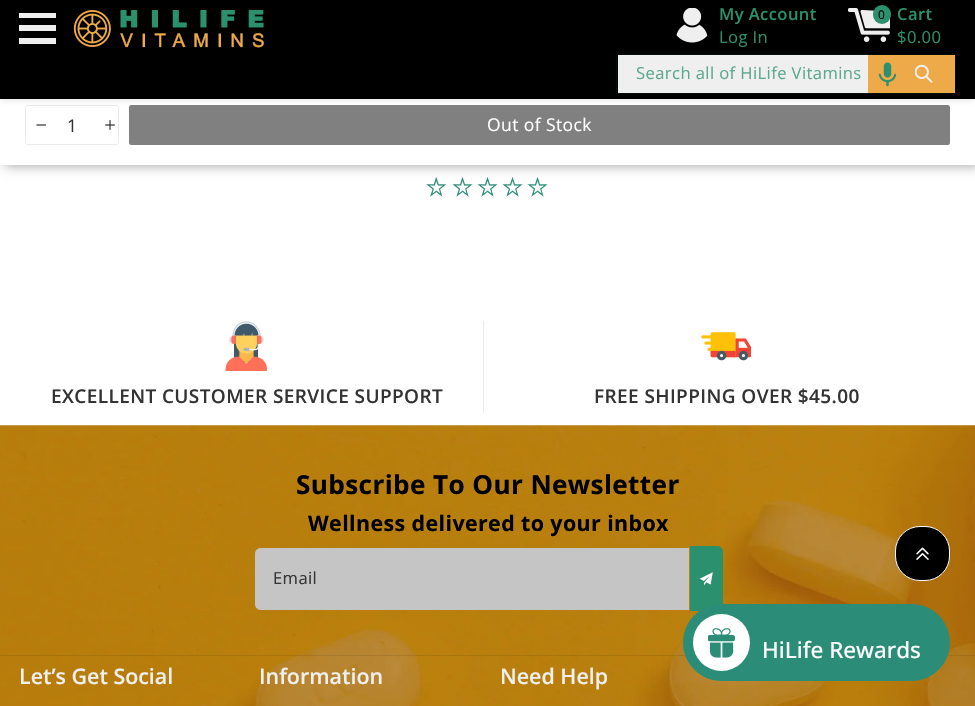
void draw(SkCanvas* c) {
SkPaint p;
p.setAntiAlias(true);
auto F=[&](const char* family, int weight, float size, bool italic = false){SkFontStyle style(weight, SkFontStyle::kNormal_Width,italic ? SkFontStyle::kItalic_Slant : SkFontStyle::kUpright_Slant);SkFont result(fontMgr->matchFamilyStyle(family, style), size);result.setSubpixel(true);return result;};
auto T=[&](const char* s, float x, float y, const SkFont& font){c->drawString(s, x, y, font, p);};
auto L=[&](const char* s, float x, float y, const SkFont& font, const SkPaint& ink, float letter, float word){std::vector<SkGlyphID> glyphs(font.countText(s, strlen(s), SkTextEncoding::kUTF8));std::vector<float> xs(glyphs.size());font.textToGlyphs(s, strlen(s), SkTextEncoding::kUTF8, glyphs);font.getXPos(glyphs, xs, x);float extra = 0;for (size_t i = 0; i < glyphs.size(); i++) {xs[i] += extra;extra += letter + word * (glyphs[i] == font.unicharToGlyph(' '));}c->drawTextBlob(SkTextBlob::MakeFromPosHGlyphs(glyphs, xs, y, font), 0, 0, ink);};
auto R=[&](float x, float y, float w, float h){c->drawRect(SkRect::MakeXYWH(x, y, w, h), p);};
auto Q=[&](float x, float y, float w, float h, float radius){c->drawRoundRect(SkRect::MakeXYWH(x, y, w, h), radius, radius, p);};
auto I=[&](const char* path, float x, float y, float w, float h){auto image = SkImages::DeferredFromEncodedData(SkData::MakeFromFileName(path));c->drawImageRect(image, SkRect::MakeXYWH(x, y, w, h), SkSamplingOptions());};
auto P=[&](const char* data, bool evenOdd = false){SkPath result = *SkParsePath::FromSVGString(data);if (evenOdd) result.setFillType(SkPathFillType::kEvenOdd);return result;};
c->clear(0xffffffff);
I("8.png",426,177,21,20);
I("9.png",452,177,21,20);
I("9.png",477,177,21,20);
I("9.png",502,177,21,20);
I("9.png",527,177,21,20);
p.setColor(0x66000000);
p.setMaskFilter(SkMaskFilter::MakeBlur(kNormal_SkBlurStyle, 6));
c->drawRect(SkRect::MakeXYWH(5,0,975,165),p);
p.setMaskFilter(nullptr);
p.setColor(0xffffffff);
R(0,99,975,66);
p.setStroke(true);
p.setStrokeWidth(1);
p.setColor(0xffeaeaea);
c->drawRoundRect(SkRect::MakeXYWH(25.5,105.5,93,39),2,2,p);
p.setStroke(false);
p.setColor(0xff808080);
Q(129,105,821,40,2.5);
p.setColor(0x1a333333);
p.setMaskFilter(SkMaskFilter::MakeBlur(kNormal_SkBlurStyle, 2.5));
c->drawRect(SkRect::MakeXYWH(0,3,975,98),p);
p.setMaskFilter(nullptr);
p.setColor(0xff000000);
R(0,0,975,99);
p.setColor(0xffefefef);
R(19,13,37,5);
R(19,25,37,6);
R(19,38,37,6);
I("1.png",73,10,191,38);
I("2.png",676,8,32,35);
auto f1 = F("Open Sans",600,16.6);
p.setColor(0xff2b906d);
L("My Account",719,20,f1,p,.4,0);
auto f2 = F("Open Sans",400,16.6);
L("Log In",719,43,f2,p,.4,0);
I("3.png",848,8,42,34);
L("Cart",897,20,f1,p,.4,0);
L("$0.00",897,43,f2,p,.4,0);
Q(873,5,18,19,9);
auto f3 = F("Open Sans",400,12);
p.setColor(0xff000000);
L("0",878,19,f3,p,.4,0);
p.setColor(0xffefefef);
R(618,55,250,38);
p.setColor(0xffeeaa49);
R(868,55,87,38);
I("4.png",915,64,18,19);
p.setStroke(true);
p.setColor(0xff040e0b);
c->drawRect(SkRect::MakeXYWH(616.5,54.5,339,39),p);
p.setStroke(false);
p.setColor(0xff5ca88e);
L("Search all of HiLife Vitamins",636,79,f2,p,.4,0);
I("5.png",878,62,19,25);
I("6.png",36,124,10,2);
auto f4 = F("Open Sans",400,17.5);
p.setColor(0xff333333);
T("1",67,132,f4);
I("7.png",105,120,10,10);
p.setColor(0xffffffff);
L("Out of Stock",487,131,f4,p,.4,0);
I("10.png",225,321,42,50);
p.setColor(0xffebebeb);
R(483,321,1,92);
auto f5 = F("Open Sans",600,19);
p.setColor(0xff333333);
L("EXCELLENT CUSTOMER SERVICE SUPPORT",51,403,f5,p,.4,0);
I("11.png",701,332,50,29);
L("FREE SHIPPING OVER $45.00",594,403,f5,p,.4,0);
I("12.png",0,425,975,281);
p.setColor(0x17000000);
R(0,655,975,1);
auto f6 = F("Open Sans",700,26.1);
p.setColor(0xff000000);
L("Subscribe To Our Newsletter",296,494,f6,p,.4,0);
auto f7 = F("Open Sans",700,21.4);
L("Wellness delivered to your inbox",308,531,f7,p,.4,0);
p.setColor(0xffc5c5c5);
c->drawPath(P("M261 548h428v62h-428c-3.5 0-6-2.5-6-6v-50c0-3.5 2.5-6 6-6z"),p);
p.setColor(0xff2b906d);
c->drawPath(P("M690 546h27c3.5 0 6 2.5 6 6v53c0 3.5-2.5 6-6 6h-27z"),p);
I("13.png",699,572,14,14);
p.setColor(0xff333333);
L("Email",273,584,f2,p,.4,0);
p.setColor(0xff000000);
c->drawRoundRect(SkRect::MakeXYWH(895.5,526.5,54,54),24.5,24.5,p);
p.setStroke(true);
p.setColor(0xffffffff);
c->drawRoundRect(SkRect::MakeXYWH(895.5,526.5,54,54),24.5,24.5,p);
I("14.png",916,547,13,13);
auto f8 = F("Open Sans",600,21.4);
p.setStroke(false);
p.setColor(0xffefefef);
T("Let’s Get Social",19,684,f8);
T("Information",259,684,f8);
T("Need Help",500,684,f8);
p.setColor(0xff2b8d77);
c->drawRoundRect(SkRect::MakeXYWH(683.5,604.5,266,76),37.5,37.5,p);
p.setStroke(true);
c->drawRoundRect(SkRect::MakeXYWH(683.5,604.5,266,76),37.5,37.5,p);
p.setStroke(false);
p.setColor(0xffffffff);
c->drawCircle(721.5,642.5,28.5,p);
I("15.png",708,628,27,30);
auto f9 = F("Open Sans",500,22.5);
T("HiLife Rewards",762,658,f9);
}
